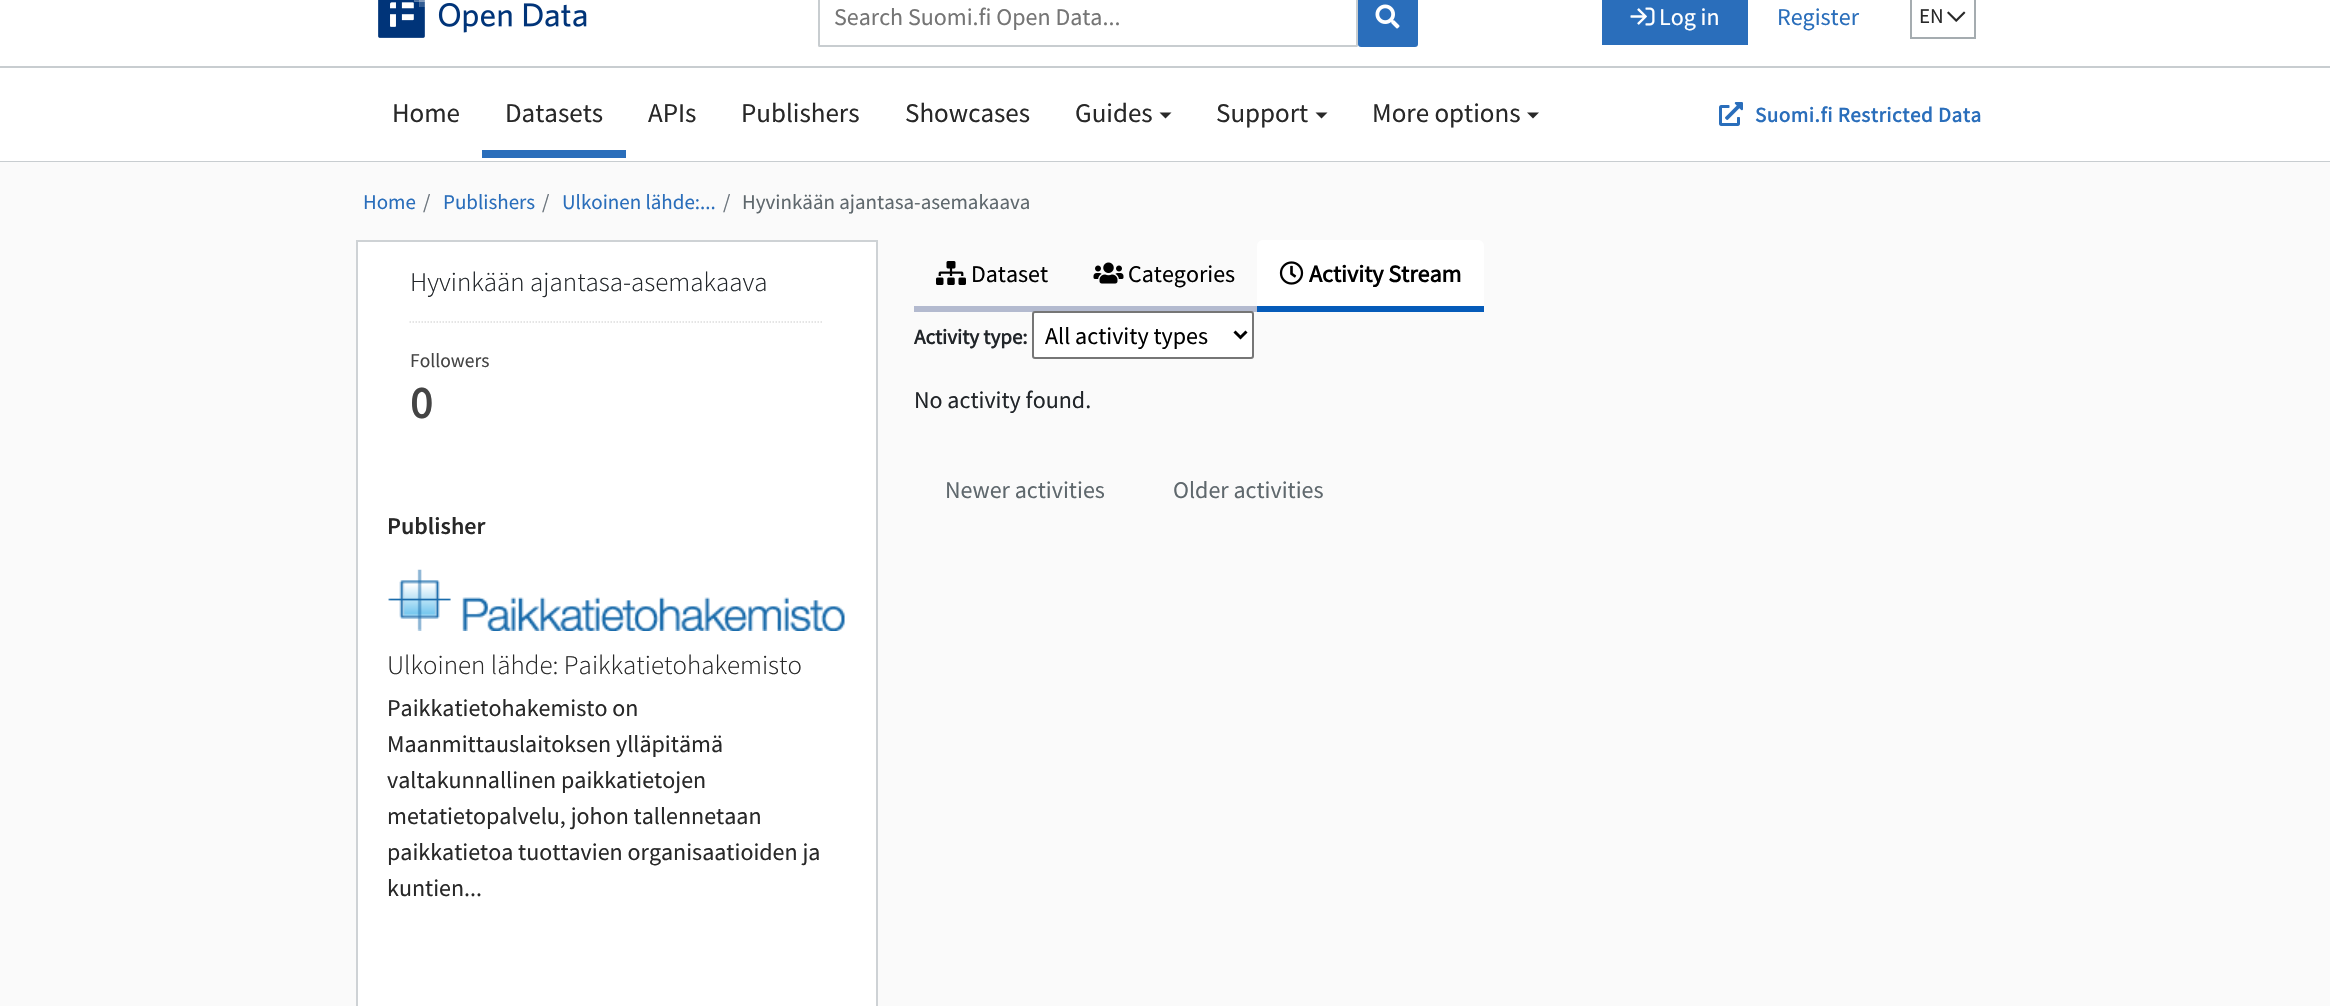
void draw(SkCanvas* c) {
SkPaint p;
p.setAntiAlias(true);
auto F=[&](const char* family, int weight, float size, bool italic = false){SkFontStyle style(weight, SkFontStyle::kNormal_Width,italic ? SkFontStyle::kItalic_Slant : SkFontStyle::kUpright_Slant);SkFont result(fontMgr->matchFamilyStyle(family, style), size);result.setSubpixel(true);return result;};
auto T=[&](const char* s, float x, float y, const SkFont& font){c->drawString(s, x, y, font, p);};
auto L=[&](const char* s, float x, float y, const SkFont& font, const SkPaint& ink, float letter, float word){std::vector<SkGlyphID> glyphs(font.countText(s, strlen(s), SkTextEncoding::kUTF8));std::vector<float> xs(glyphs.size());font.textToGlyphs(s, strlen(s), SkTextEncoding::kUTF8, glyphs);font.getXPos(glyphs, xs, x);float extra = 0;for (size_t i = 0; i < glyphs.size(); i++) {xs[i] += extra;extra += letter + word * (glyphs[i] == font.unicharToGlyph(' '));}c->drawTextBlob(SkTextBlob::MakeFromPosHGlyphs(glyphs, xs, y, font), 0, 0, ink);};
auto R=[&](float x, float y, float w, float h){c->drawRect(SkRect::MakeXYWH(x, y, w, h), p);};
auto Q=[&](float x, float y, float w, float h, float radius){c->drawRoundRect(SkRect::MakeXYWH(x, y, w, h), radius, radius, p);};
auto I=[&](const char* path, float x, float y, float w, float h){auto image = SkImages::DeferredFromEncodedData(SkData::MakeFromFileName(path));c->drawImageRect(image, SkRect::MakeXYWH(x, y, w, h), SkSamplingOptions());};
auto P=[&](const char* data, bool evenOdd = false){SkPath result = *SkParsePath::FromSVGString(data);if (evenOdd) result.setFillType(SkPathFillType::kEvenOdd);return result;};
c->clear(0xffffffff);
I("1.png",378,0,209,38);
p.setStroke(true);
p.setStrokeWidth(2);
p.setColor(0xffc8cdd0);
c->drawRoundRect(SkRect::MakeXYWH(819,-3,538,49),.5,.5,p);
auto f1 = F("Source Sans Pro",400,24);
p.setStroke(false);
p.setColor(0xff757575);
T("Search Suomi.fi Open Data...",834,25,f1);
p.setColor(0xff2a6ebb);
Q(1358,-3,60,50,3);
I("2.png",1375,4,25,25);
R(1602,0,146,45);
I("3.png",1630,7,25,19);
p.setColor(0xffffffff);
T("Log in",1659,25,f1);
p.setColor(0xff2a6ebb);
T("Register",1777,25,f1);
p.setStroke(true);
p.setColor(0xffa5acb0);
c->drawRect(SkRect::MakeXYWH(1911,-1,64,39),p);
auto f2 = F("Source Sans Pro",400,21);
p.setStroke(false);
p.setColor(0xff282828);
T("EN",1919,23,f2);
I("4.png",1947,11,19,11);
p.setColor(0xffc8cdd0);
R(0,66,2330,2);
R(0,161,2330,1);
auto f3 = F("Source Sans Pro",400,27);
p.setColor(0xff282828);
T("Home",392,122,f3);
p.setColor(0xff2a6ebb);
R(482,150,144,8);
p.setColor(0xff282828);
T("Datasets",505,122,f3);
T("APIs",648,122,f3);
T("Publishers",741,122,f3);
T("Showcases",905,122,f3);
T("Guides",1075,122,f3);
p.setColor(0xff292929);
c->drawPath(P("M1159.5 112.5h12l-6 6z"),p);
p.setColor(0xff282828);
T("Support",1216,122,f3);
p.setColor(0xff292929);
c->drawPath(P("M1315.5 112.5h12l-6 6z"),p);
p.setColor(0xff282828);
T("More options",1372,122,f3);
p.setColor(0xff292929);
c->drawPath(P("M1527 112.5h12l-6 6z"),p);
I("5.png",1719,102,24,24);
auto f4 = F("Source Sans Pro",700,21);
p.setColor(0xff2a6ebb);
L("Suomi.fi Restricted Data",1755,122,f4,p,.6,0);
p.setColor(0xfffafafa);
R(0,162,2330,844);
p.setColor(0xff2a6ebb);
T("Home",363,209,f2);
p.setColor(0xff6c757d);
T("/",423,209,f2);
p.setColor(0xff2a6ebb);
T("Publishers",443,209,f2);
p.setColor(0xff6c757d);
T("/",542,209,f2);
p.setColor(0xff2a6ebb);
T("Ulkoinen lähde:...",562,209,f2);
p.setColor(0xff6c757d);
T("/",723,209,f2);
p.setColor(0xff5f686d);
T("Hyvinkään ajantasa-asemakaava",742,209,f2);
p.setColor(0xffffffff);
c->drawRect(SkRect::MakeXYWH(357,241,520,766),p);
p.setStroke(true);
p.setColor(0xffced2d5);
c->drawRect(SkRect::MakeXYWH(357,241,520,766),p);
auto f5 = F("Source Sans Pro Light",300,27);
p.setStroke(false);
p.setColor(0xff212529);
T("Hyvinkään ajantasa-asemakaava",410,291,f5);
p.setStroke(true);
p.setStrokeWidth(1.5);
p.setColor(0xffdddddd);
p.setPathEffect(SkDashPathEffect::Make({{1.5f,1.5f}}, 0));
c->drawPath(P("M409.5 322h414"),p);
p.setPathEffect(nullptr);
auto f6 = F("Source Sans Pro",400,19.5);
p.setStroke(false);
p.setColor(0xff444444);
T("Followers",410,367,f6);
auto f7 = F("Source Sans Pro",700,45);
T("0",410,418,f7);
auto f8 = F("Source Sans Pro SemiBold",600,24);
p.setColor(0xff282828);
T("Publisher",387,534,f8);
I("6.png",388,569,457,62);
T("Ulkoinen lähde: Paikkatietohakemisto",387,674,f5);
T("Paikkatietohakemisto on",387,716,f1);
T("Maanmittauslaitoksen ylläpitämä",387,752,f1);
T("valtakunnallinen paikkatietojen",387,788,f1);
T("metatietopalvelu, johon tallennetaan",387,824,f1);
T("paikkatietoa tuottavien organisaatioiden ja",387,860,f1);
T("kuntien...",387,896,f1);
p.setColor(0xffb3bacf);
R(914,306,343,6);
I("7.png",936,261,30,24);
p.setColor(0xff000000);
T("Dataset",971,282,f1);
I("8.png",1093,262,31,22);
T("Categories",1128,282,f1);
p.setColor(0xff055bb9);
R(1257,306,227,6);
p.setColor(0xffffffff);
c->drawPath(P("M1263 240h215c3.5 0 6 2.5 6 6v60h-227v-60c0-3.5 2.5-6 6-6z"),p);
I("9.png",1279,261,25,24);
auto f9 = F("Source Sans Pro",700,24);
p.setColor(0xff000000);
T("Activity Stream",1309,282,f9);
p.setColor(0xff212529);
T("Activity type:",914,344,f4);
p.setColor(0xffffffff);
c->drawRoundRect(SkRect::MakeXYWH(1033,312,220,46),2,2,p);
p.setStroke(true);
p.setStrokeWidth(2);
p.setColor(0xff767676);
c->drawRoundRect(SkRect::MakeXYWH(1033,312,220,46),2,2,p);
p.setStrokeWidth(3);
p.setColor(0xff000000);
c->drawPath(P("M1234.5 331.5l6 6l6-6"),p);
p.setStroke(false);
T("All activity types",1045,344,f1);
p.setColor(0xff212529);
T("No activity found.",914,408,f1);
p.setColor(0xff5f686d);
T("Newer activities",945,498,f1);
T("Older activities",1173,498,f1);
}
